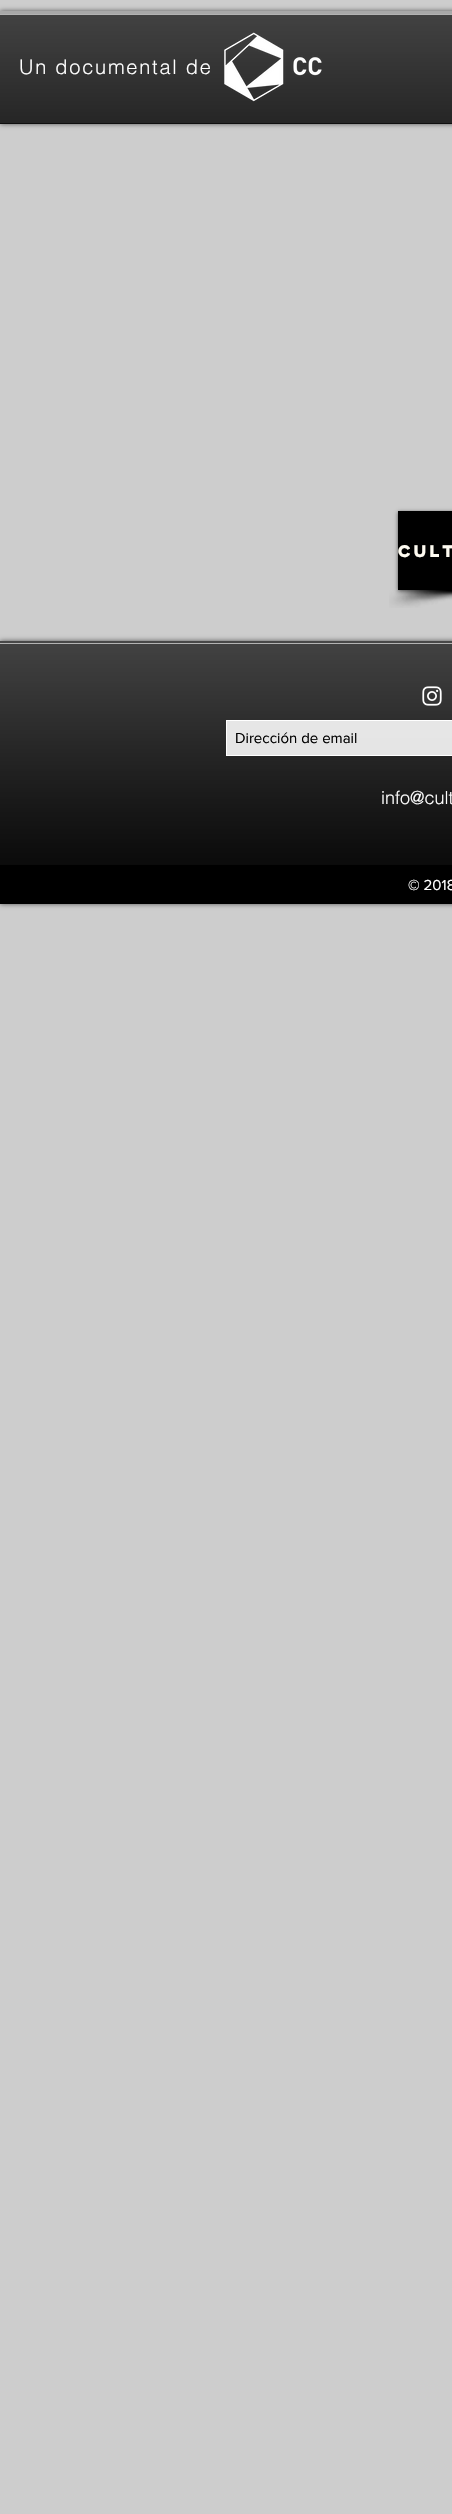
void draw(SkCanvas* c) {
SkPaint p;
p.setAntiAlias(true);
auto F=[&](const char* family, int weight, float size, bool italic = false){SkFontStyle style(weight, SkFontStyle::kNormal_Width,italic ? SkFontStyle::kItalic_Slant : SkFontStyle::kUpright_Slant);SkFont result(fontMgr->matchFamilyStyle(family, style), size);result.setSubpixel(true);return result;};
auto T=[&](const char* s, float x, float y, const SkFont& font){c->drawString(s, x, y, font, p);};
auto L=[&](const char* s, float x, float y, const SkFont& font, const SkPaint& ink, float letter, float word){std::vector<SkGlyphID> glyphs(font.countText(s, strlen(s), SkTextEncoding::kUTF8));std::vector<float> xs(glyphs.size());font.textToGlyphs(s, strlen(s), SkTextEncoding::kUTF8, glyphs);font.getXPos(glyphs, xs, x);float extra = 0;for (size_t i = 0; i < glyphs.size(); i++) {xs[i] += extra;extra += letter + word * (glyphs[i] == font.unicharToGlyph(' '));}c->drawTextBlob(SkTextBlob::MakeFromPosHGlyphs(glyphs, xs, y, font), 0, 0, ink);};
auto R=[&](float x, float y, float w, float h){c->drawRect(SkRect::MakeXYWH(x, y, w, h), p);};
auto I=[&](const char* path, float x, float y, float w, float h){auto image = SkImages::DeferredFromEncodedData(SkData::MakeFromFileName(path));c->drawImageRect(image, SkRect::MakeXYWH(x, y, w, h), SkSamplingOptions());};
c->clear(0xffcdcdcd);
p.setColor(0x99000000);
p.setMaskFilter(SkMaskFilter::MakeBlur(kNormal_SkBlurStyle, 2.5));
c->drawRect(SkRect::MakeXYWH(0,11,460,113),p);
p.setMaskFilter(nullptr);
p.setColor(0xff000000);
R(0,15,452,108);
I("1.png",0,15,452,108);
p.setColor(0xff0f0f0f);
R(0,123,452,1);
p.setColor(0xffb3b3b3);
R(0,14,452,1);
p.setColor(0xffa8a8a8);
R(0,11,452,3);
auto f1 = F("helvetica",300,20);
p.setColor(0xffffffff);
L("Un documental de",19,74,f1,p,1.75,0);
I("2.png",224,32,98,70);
I("3.png",389,590,63,18);
p.setColor(0x99000000);
p.setMaskFilter(SkMaskFilter::MakeBlur(kNormal_SkBlurStyle, 2));
c->drawRect(SkRect::MakeXYWH(398,512,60,79),p);
p.setMaskFilter(nullptr);
p.setColor(0xff000000);
R(398,511,54,79);
auto f2 = F("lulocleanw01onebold",700,15);
p.setColor(0xfffefbf1);
T("Cult",398,557,f2);
p.setColor(0x99000000);
p.setMaskFilter(SkMaskFilter::MakeBlur(kNormal_SkBlurStyle, 2.5));
c->drawRect(SkRect::MakeXYWH(0,641,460,263),p);
p.setMaskFilter(nullptr);
p.setColor(0xff000000);
R(0,644,452,260);
I("4.png",0,644,452,221);
p.setColor(0xffb3b3b3);
R(0,643,452,1);
p.setColor(0xff484848);
R(0,641,452,2);
I("5.png",422,686,20,20);
p.setColor(0xe0ffffff);
c->drawRect(SkRect::MakeXYWH(226.5,720.5,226,35),p);
p.setStroke(true);
p.setStrokeWidth(1);
p.setColor(0xffffffff);
c->drawRect(SkRect::MakeXYWH(226.5,720.5,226,35),p);
auto f3 = F("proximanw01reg",400,15);
p.setStroke(false);
p.setColor(0xff000000);
T("Dirección de email",235,743,f3);
auto f4 = F("helvetica",300,18);
p.setColor(0xffffffff);
T("info@cult",381,804,f4);
T("© 2018",408,890,f3);
}
